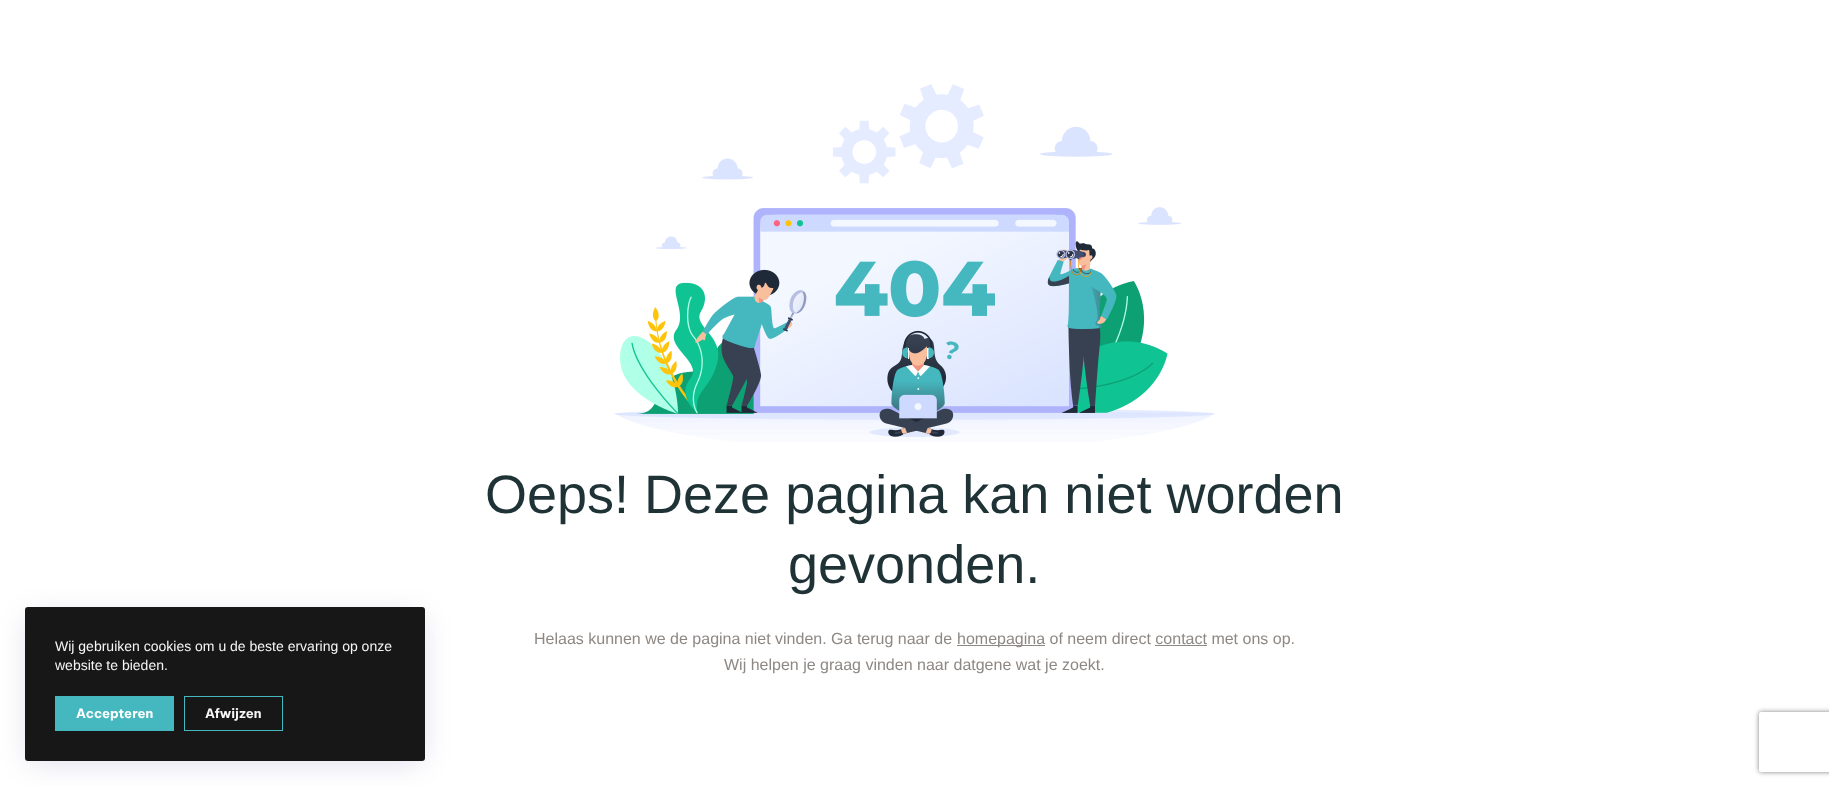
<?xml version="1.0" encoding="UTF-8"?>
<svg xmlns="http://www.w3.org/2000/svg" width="1829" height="786">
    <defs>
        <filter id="blur1" x="-50%" y="-200%" width="200%" height="500%"><feGaussianBlur stdDeviation="15"/></filter>
        <clipPath id="clip1"><path d="M 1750 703 H 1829 V 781 H 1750 Z M 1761 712 H 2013 C 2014 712 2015 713 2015 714 V 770 C 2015 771 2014 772 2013 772 H 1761 C 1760 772 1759 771 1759 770 V 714 C 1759 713 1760 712 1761 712 Z" clip-rule="evenodd"/></clipPath>
        <filter id="blur2" x="-50%" y="-200%" width="200%" height="500%"><feGaussianBlur stdDeviation="2.5"/></filter>
    </defs>
    <rect width="100%" height="100%" fill="#FFFFFF"/>
    <rect x="30" y="617" width="390" height="144" fill="#223865" fill-opacity="0.15" filter="url(#blur1)"/>
    <rect x="25" y="607" width="400" height="154" rx="3" fill="#171717"/>
    <text font-family="Liberation Sans" font-size="14" fill="#F5F5F5">
        <tspan x="55" y="651">Wij gebruiken cookies om u de beste ervaring op onze</tspan>
        <tspan x="55" y="670">website te bieden.</tspan>
    </text>
    <rect x="55" y="696" width="119" height="35" fill="#45B7BE"/>
    <text x="76" y="718" font-family="Be Vietnam Pro" font-size="13" font-weight="700" fill="#FFFFFF">Accepteren</text>
    <rect x="184.5" y="696.5" width="98" height="34" fill="none" stroke="#45B7BE"/>
    <text x="205" y="718" font-family="Be Vietnam Pro" font-size="13" font-weight="700" fill="#F5F5F5">Afwijzen</text>
    <image x="614" y="84" width="601" height="358" href="img_01.png"/>
    <text x="485" y="513" font-family="Liberation Sans" font-size="54" fill="#1F3337">Oeps! Deze pagina kan niet worden</text>
    <text x="788" y="583" font-family="Liberation Sans" font-size="54" fill="#1F3337">gevonden.</text>
    <text x="534" y="644" font-family="Liberation Sans" font-size="16" fill="#8E8884">Helaas kunnen we de pagina niet vinden. Ga terug naar de</text>
    <rect x="957" y="645" width="88" height="1" fill="#8E8884"/>
    <text x="957" y="644" font-family="Liberation Sans" font-size="16" fill="#8E8884">homepagina of neem direct contact met ons op.</text>
    <rect x="1155" y="645" width="52" height="1" fill="#8E8884"/>
    <text x="724" y="670" font-family="Liberation Sans" font-size="16" fill="#8E8884">Wij helpen je graag vinden naar datgene wat je zoekt.</text>
    <g clip-path="url(#clip1)">
        <rect x="1759" y="712" width="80" height="60" rx="2" fill="#808080" filter="url(#blur2)"/>
    </g>
</svg>
